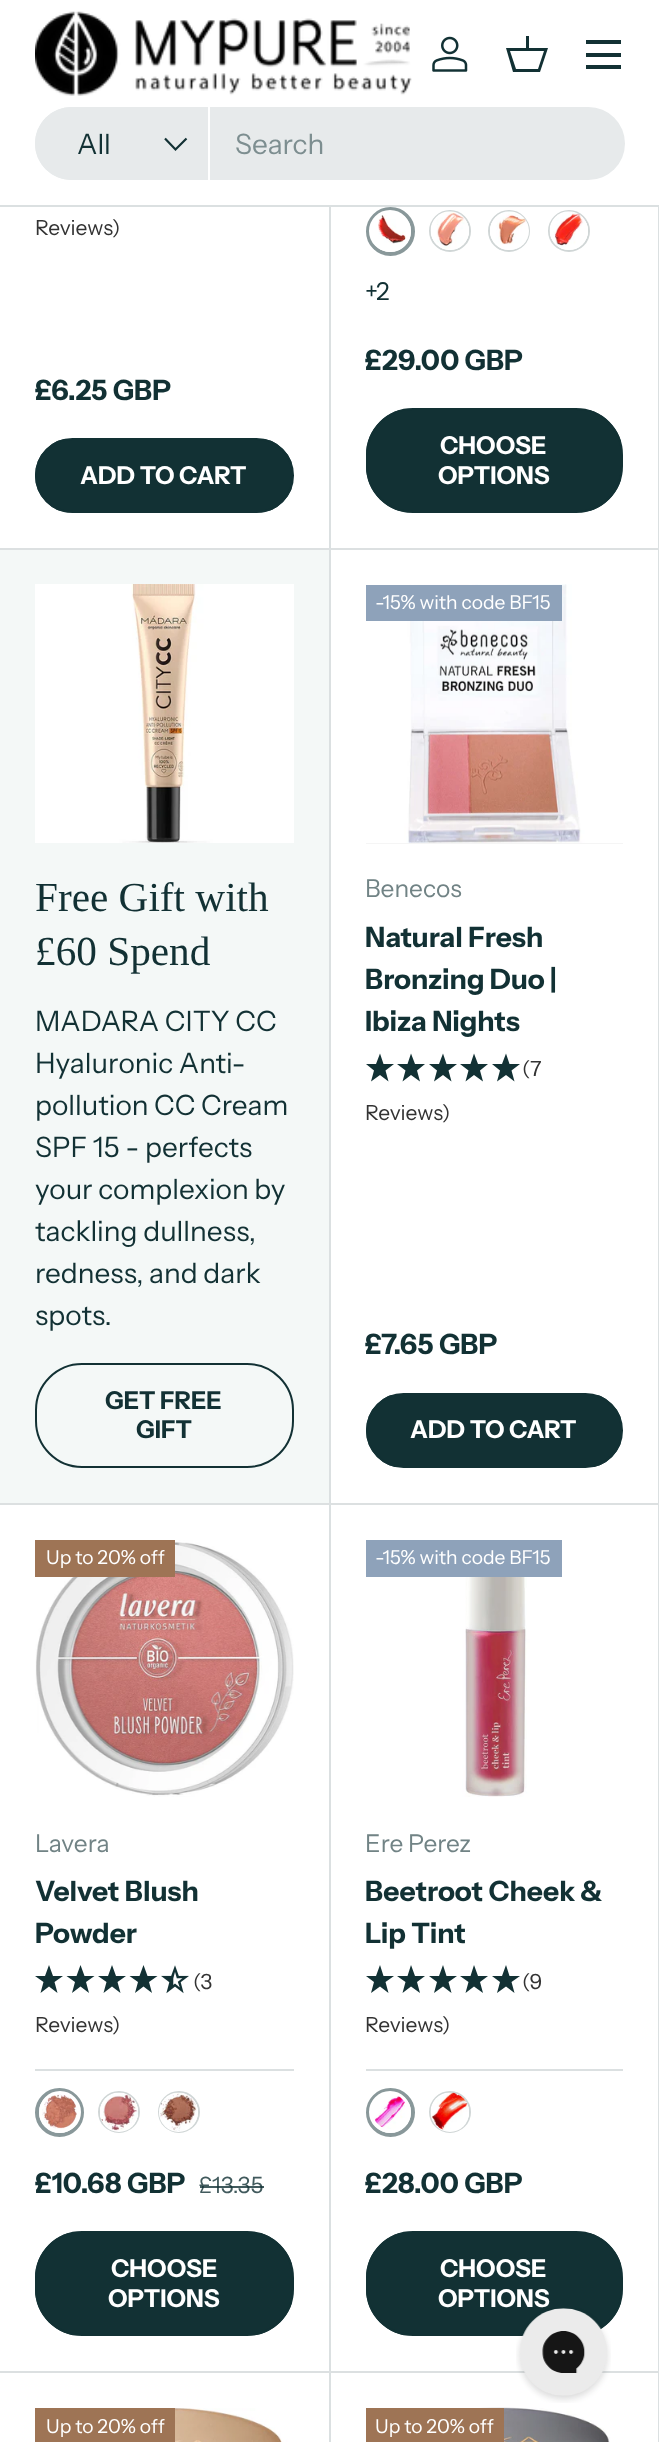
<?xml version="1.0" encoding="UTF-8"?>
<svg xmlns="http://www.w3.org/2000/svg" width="659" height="2442">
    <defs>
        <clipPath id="clip1"><rect x="35" y="438" width="259" height="75" rx="37.5"/></clipPath>
        <linearGradient id="g1" gradientUnits="userSpaceOnUse" x1="-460" y1="383" x2="278" y2="567"><stop offset="0.6" stop-color="#3C595B"/><stop offset="0.6" stop-color="#123134"/><stop offset="1" stop-color="#123134"/></linearGradient>
        <clipPath id="clip2"><rect x="366" y="408" width="257" height="105" rx="47"/></clipPath>
        <linearGradient id="g2" gradientUnits="userSpaceOnUse" x1="-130" y1="368" x2="611" y2="553"><stop offset="0.6" stop-color="#3C595B"/><stop offset="0.6" stop-color="#123134"/><stop offset="1" stop-color="#123134"/></linearGradient>
        <clipPath id="clip3"><rect x="366" y="1393" width="257" height="75" rx="37.5"/></clipPath>
        <linearGradient id="g3" gradientUnits="userSpaceOnUse" x1="-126" y1="1339" x2="607" y2="1522"><stop offset="0.6" stop-color="#3C595B"/><stop offset="0.6" stop-color="#123134"/><stop offset="1" stop-color="#123134"/></linearGradient>
        <clipPath id="clip4"><rect x="35" y="2231" width="259" height="105" rx="47"/></clipPath>
        <linearGradient id="g4" gradientUnits="userSpaceOnUse" x1="-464" y1="2191" x2="282" y2="2377"><stop offset="0.6" stop-color="#3C595B"/><stop offset="0.6" stop-color="#123134"/><stop offset="1" stop-color="#123134"/></linearGradient>
        <clipPath id="clip5"><rect x="366" y="2231" width="257" height="105" rx="47"/></clipPath>
        <linearGradient id="g5" gradientUnits="userSpaceOnUse" x1="-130" y1="2191" x2="611" y2="2376"><stop offset="0.6" stop-color="#3C595B"/><stop offset="0.6" stop-color="#123134"/><stop offset="1" stop-color="#123134"/></linearGradient>
    </defs>
    <rect width="100%" height="100%" fill="#FFFFFF"/>
    <path d="M 331 -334 V 550 L 329 548 V -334 Z" fill="#DBE0E1"/>
    <path d="M 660 -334 V 550 L 658 548 V -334 Z" fill="#DBE0E1"/>
    <rect x="329" y="0" width="330" height="205" fill="#FFFFFF"/>
    <rect x="0" y="205" width="659" height="2" fill="#DBE0E1"/>
    <image x="35" y="11" width="377" height="85" href="img_01.png"/>
    <image x="432" y="36" width="36" height="36" href="img_02.png"/>
    <path d="M 526 48 V 36 H 529 V 48 H 548 L 540 72 H 513 L 506 48 Z M 510 51 L 516 69 H 538 L 544 51 Z" fill="#123134"/>
    <rect x="586" y="40" width="35" height="4" fill="#123134"/>
    <rect x="586" y="65" width="35" height="4" fill="#123134"/>
    <rect x="586" y="53" width="35" height="4" fill="#123134"/>
    <rect x="35" y="107" width="590" height="73" rx="36.5" fill="#E7EAEB"/>
    <path d="M 71.5 107 H 210 V 180 H 71.5 C 51.5 180 35 163.5 35 143.5 C 35 123.5 51.5 107 71.5 107 Z" fill="#E7EAEB"/>
    <rect x="208" y="107" width="2" height="73" fill="#FFFFFF"/>
    <text x="77" y="154" font-family="Instrument Sans" font-size="28" fill="#123134">All</text>
    <path d="M 186.5 138.5 L 175.5 149.5 L 165 138.5" fill="none" stroke="#123134" stroke-width="2.2"/>
    <text x="235" y="154" font-family="Instrument Sans" font-size="28" fill="#7D8E90">Search</text>
    <path d="M 331 550 H 0 V 548 H 329 Z" fill="#123134" fill-opacity="0.15"/>
    <text x="35" y="235" font-family="Instrument Sans" font-size="21" fill="#333333">Reviews)</text>
    <text x="35" y="400" font-family="Instrument Sans" font-size="28" font-weight="700" fill="#123134">£6.25 GBP</text>
    <g clip-path="url(#clip1)">
        <rect x="35" y="439" width="257" height="72" fill="url(#g1)"/>
    </g>
    <rect x="36" y="439" width="257" height="73" rx="36.5" fill="none" stroke="#123134" stroke-width="2"/>
    <text x="80" y="484" font-family="Instrument Sans" font-size="24.5" font-weight="700" fill="#FFFFFF">ADD TO CART</text>
    <path d="M 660 550 H 331 V 548 H 658 Z" fill="#123134" fill-opacity="0.15"/>
    <circle cx="390.5" cy="231.5" r="22.5" fill="none" stroke="#89989A" stroke-width="4"/>
    <circle cx="390" cy="231" r="19" fill="none" stroke="#FFFFFF" stroke-width="4"/>
    <image x="378" y="215" width="28" height="29" href="img_03.png"/>
    <circle cx="450" cy="231" r="20" fill="none" stroke="#D0D6D6" stroke-width="2"/>
    <circle cx="450" cy="231" r="19" fill="#FFFFFF"/>
    <image x="430" y="211" width="39" height="38" href="img_04.png"/>
    <circle cx="509" cy="231" r="20" fill="none" stroke="#D0D6D6" stroke-width="2"/>
    <rect x="490" y="212" width="39" height="38" rx="19" fill="#FFFFFF"/>
    <image x="490" y="211" width="38" height="34" href="img_05.png"/>
    <circle cx="569" cy="231" r="20" fill="none" stroke="#D0D6D6" stroke-width="2"/>
    <circle cx="569" cy="231" r="19" fill="#FFFFFF"/>
    <image x="549" y="211" width="39" height="37" href="img_06.png"/>
    <text x="365" y="300" font-family="Instrument Sans" font-size="24.5" fill="#123134">+2</text>
    <text x="365" y="370" font-family="Instrument Sans" font-size="28" font-weight="700" fill="#123134">£29.00 GBP</text>
    <g clip-path="url(#clip2)">
        <rect x="366" y="410" width="255" height="101" fill="url(#g2)"/>
    </g>
    <rect x="367" y="409" width="255" height="103" rx="46" fill="none" stroke="#123134" stroke-width="2"/>
    <text x="440" y="454" font-family="Instrument Sans" font-size="24.5" font-weight="700" fill="#FFFFFF">CHOOSE</text>
    <text x="438" y="484" font-family="Instrument Sans" font-size="24.5" font-weight="700" fill="#FFFFFF">OPTIONS</text>
    <path d="M 331 550 V 1505 L 329 1503 V 550 Z" fill="#DBE0E1"/>
    <path d="M 331 1505 H 0 V 1503 H 329 Z" fill="#123134" fill-opacity="0.15"/>
    <rect x="0" y="550" width="329" height="953" fill="#F4F8F7"/>
    <image x="35" y="584" width="259" height="259" href="img_07.png"/>
    <text font-family="Liberation Serif" font-size="41.25" fill="#123134">
        <tspan x="35" y="911">Free Gift with</tspan>
        <tspan x="35" y="965">£60 Spend</tspan>
    </text>
    <text font-family="Instrument Sans" font-size="28" fill="#123134">
        <tspan x="35" y="1031">MADARA CITY CC</tspan>
        <tspan x="35" y="1073">Hyaluronic Anti-</tspan>
        <tspan x="35" y="1115">pollution CC Cream</tspan>
        <tspan x="35" y="1157">SPF 15 - perfects</tspan>
        <tspan x="35" y="1199">your complexion by</tspan>
        <tspan x="35" y="1241">tackling dullness,</tspan>
        <tspan x="35" y="1283">redness, and dark</tspan>
        <tspan x="35" y="1325">spots.</tspan>
    </text>
    <rect x="36" y="1364" width="257" height="103" rx="46" fill="none" stroke="#123134" stroke-width="2"/>
    <text x="105" y="1409" font-family="Instrument Sans" font-size="24.5" font-weight="700" fill="#123134">GET FREE</text>
    <text x="136" y="1438" font-family="Instrument Sans" font-size="24.5" font-weight="700" fill="#123134">GIFT</text>
    <path d="M 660 550 V 1505 L 658 1503 V 550 Z" fill="#DBE0E1"/>
    <path d="M 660 1505 H 331 V 1503 H 658 Z" fill="#123134" fill-opacity="0.15"/>
    <rect x="366" y="843" width="257" height="1" fill="#F5F5F5"/>
    <image x="366" y="584" width="257" height="259" href="img_08.png"/>
    <rect x="366" y="585" width="196" height="36" fill="#8EA2BA"/>
    <text x="375" y="609" font-family="Instrument Sans" font-size="19.25" fill="#FFFFFF">-15% with code BF15</text>
    <text x="365" y="897" font-family="Instrument Sans" font-size="24.5" fill="#718385">Benecos</text>
    <text font-family="Instrument Sans" font-size="28" font-weight="700" fill="#123134">
        <tspan x="365" y="947">Natural Fresh</tspan>
        <tspan x="365" y="989">Bronzing Duo |</tspan>
        <tspan x="365" y="1031">Ibiza Nights</tspan>
    </text>
    <path d="M 394 1064 L 385.5 1070.5 L 388.5 1081.5 L 380 1075 L 371 1081.5 L 374 1070.5 L 366 1064 H 376 L 380 1053.5 L 383.5 1064 Z M 425 1064 L 417 1070.5 L 420 1081.5 L 411 1075 L 402.5 1081.5 L 405.5 1070.5 L 397 1064 H 407.5 L 411 1053.5 L 415 1064 Z" fill="#123134"/>
    <path d="M 457 1064 L 448.5 1070.5 L 451.5 1081.5 L 443 1075 L 434 1081.5 L 437 1070.5 L 429 1064 H 439 L 443 1053.5 L 446.5 1064 Z M 488 1064 L 480 1070.5 L 483 1081.5 L 474 1075 L 465.5 1081.5 L 468.5 1070.5 L 460 1064 H 470.5 L 474 1053.5 L 478 1064 Z" fill="#123134"/>
    <path d="M 520 1064 L 511.5 1070.5 L 514.5 1081.5 L 506 1075 L 497 1081.5 L 500 1070.5 L 492 1064 H 502 L 506 1053.5 L 509.5 1064 Z" fill="#123134"/>
    <text x="522" y="1076" font-family="Instrument Sans" font-size="21" fill="#333333">(7</text>
    <text x="365" y="1120" font-family="Instrument Sans" font-size="21" fill="#333333">Reviews)</text>
    <text x="365" y="1354" font-family="Instrument Sans" font-size="28" font-weight="700" fill="#123134">£7.65 GBP</text>
    <g clip-path="url(#clip3)">
        <rect x="366" y="1395" width="255" height="72" fill="url(#g3)"/>
    </g>
    <rect x="367" y="1394" width="255" height="73" rx="36.5" fill="none" stroke="#123134" stroke-width="2"/>
    <text x="410" y="1438" font-family="Instrument Sans" font-size="24.5" font-weight="700" fill="#FFFFFF">ADD TO CART</text>
    <path d="M 331 1505 V 2373 L 329 2371 V 1505 Z" fill="#DBE0E1"/>
    <path d="M 331 2373 H 0 V 2371 H 329 Z" fill="#123134" fill-opacity="0.15"/>
    <image x="35" y="1540" width="259" height="257" href="img_09.png"/>
    <rect x="35" y="1540" width="140" height="37" fill="#9E7455"/>
    <text x="46" y="1564" font-family="Instrument Sans" font-size="19.25" fill="#FFFFFF">Up to 20% off</text>
    <text x="35" y="1852" font-family="Instrument Sans" font-size="24.5" fill="#718385">Lavera</text>
    <text font-family="Instrument Sans" font-size="28" font-weight="700" fill="#123134">
        <tspan x="35" y="1901">Velvet Blush</tspan>
        <tspan x="35" y="1943">Powder</tspan>
    </text>
    <path d="M 63 1976 L 54.5 1982 L 57.5 1993 L 49 1986.5 L 40.5 1993 L 43.5 1982 L 35 1976 H 45 L 49 1965 L 53 1976 Z M 94.5 1976 L 86 1982 L 89 1993 L 80.5 1986.5 L 72 1993 L 75 1982 L 66.5 1976 H 76.5 L 80.5 1965 L 84.5 1976 Z" fill="#123134"/>
    <path d="M 126 1976 L 117.5 1982 L 120.5 1993 L 112 1986.5 L 103.5 1993 L 106.5 1982 L 98 1976 H 108 L 112 1965 L 116 1976 Z M 157.5 1976 L 149 1982 L 152 1993 L 143.5 1986.5 L 135 1993 L 138 1982 L 129.5 1976 H 139.5 L 143.5 1965 L 147.5 1976 Z" fill="#123134"/>
    <image x="161" y="1965" width="28" height="29" href="img_10.png"/>
    <text x="193" y="1989" font-family="Instrument Sans" font-size="21" fill="#333333">(3</text>
    <text x="35" y="2032" font-family="Instrument Sans" font-size="21" fill="#333333">Reviews)</text>
    <rect x="35" y="2069" width="259" height="2" fill="#DBE0E1"/>
    <circle cx="59.5" cy="2112.5" r="22.5" fill="none" stroke="#89989A" stroke-width="4"/>
    <circle cx="60" cy="2112" r="19" fill="none" stroke="#FFFFFF" stroke-width="4"/>
    <image x="42" y="2094" width="35" height="35" href="img_11.png"/>
    <circle cx="119" cy="2112" r="20" fill="none" stroke="#D0D6D6" stroke-width="2"/>
    <rect x="100" y="2093" width="38" height="39" rx="19" fill="#FFFFFF"/>
    <image x="100" y="2092" width="38" height="39" href="img_12.png"/>
    <circle cx="179" cy="2112" r="20" fill="none" stroke="#D0D6D6" stroke-width="2"/>
    <circle cx="178.5" cy="2112.5" r="19.5" fill="#FFFFFF"/>
    <image x="159" y="2092" width="38" height="39" href="img_13.png"/>
    <text x="35" y="2193" font-family="Instrument Sans" font-size="28" font-weight="700" fill="#123134">£10.68 GBP</text>
    <text x="199" y="2193" font-family="Instrument Sans" font-size="22.5" fill="#415A5D">£13.35</text>
    <rect x="200" y="2186" width="64" height="2" fill="#123134" fill-opacity="0.8"/>
    <g clip-path="url(#clip4)">
        <rect x="35" y="2233" width="257" height="102" fill="url(#g4)"/>
    </g>
    <rect x="36" y="2232" width="257" height="103" rx="46" fill="none" stroke="#123134" stroke-width="2"/>
    <text x="111" y="2277" font-family="Instrument Sans" font-size="24.5" font-weight="700" fill="#FFFFFF">CHOOSE</text>
    <text x="108" y="2307" font-family="Instrument Sans" font-size="24.5" font-weight="700" fill="#FFFFFF">OPTIONS</text>
    <path d="M 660 1505 V 2373 L 658 2371 V 1505 Z" fill="#DBE0E1"/>
    <path d="M 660 2373 H 331 V 2371 H 658 Z" fill="#123134" fill-opacity="0.15"/>
    <image x="366" y="1540" width="257" height="257" href="img_14.png"/>
    <rect x="366" y="1540" width="196" height="37" fill="#8EA2BA"/>
    <text x="375" y="1564" font-family="Instrument Sans" font-size="19.25" fill="#FFFFFF">-15% with code BF15</text>
    <text x="365" y="1852" font-family="Instrument Sans" font-size="24.5" fill="#718385">Ere Perez</text>
    <text font-family="Instrument Sans" font-size="28" font-weight="700" fill="#123134">
        <tspan x="365" y="1901">Beetroot Cheek &amp;</tspan>
        <tspan x="365" y="1943">Lip Tint</tspan>
    </text>
    <path d="M 394 1976 L 385.5 1982 L 388.5 1993 L 380 1986.5 L 371 1993 L 374 1982 L 366 1976 H 376 L 380 1965 L 383.5 1976 Z M 425 1976 L 417 1982 L 420 1993 L 411 1986.5 L 402.5 1993 L 405.5 1982 L 397 1976 H 407.5 L 411 1965 L 415 1976 Z" fill="#123134"/>
    <path d="M 457 1976 L 448.5 1982 L 451.5 1993 L 443 1986.5 L 434 1993 L 437 1982 L 429 1976 H 439 L 443 1965 L 446.5 1976 Z M 488 1976 L 480 1982 L 483 1993 L 474 1986.5 L 465.5 1993 L 468.5 1982 L 460 1976 H 470.5 L 474 1965 L 478 1976 Z" fill="#123134"/>
    <path d="M 520 1976 L 511.5 1982 L 514.5 1993 L 506 1986.5 L 497 1993 L 500 1982 L 492 1976 H 502 L 506 1965 L 509.5 1976 Z" fill="#123134"/>
    <text x="522" y="1989" font-family="Instrument Sans" font-size="21" fill="#333333">(9</text>
    <text x="365" y="2032" font-family="Instrument Sans" font-size="21" fill="#333333">Reviews)</text>
    <rect x="366" y="2069" width="257" height="2" fill="#DBE0E1"/>
    <circle cx="390.5" cy="2112.5" r="22.5" fill="none" stroke="#89989A" stroke-width="4"/>
    <circle cx="390" cy="2112" r="19" fill="none" stroke="#FFFFFF" stroke-width="4"/>
    <image x="374" y="2096" width="31" height="33" href="img_15.png"/>
    <circle cx="450" cy="2112" r="20" fill="none" stroke="#D0D6D6" stroke-width="2"/>
    <rect x="431" y="2093" width="38" height="39" rx="19" fill="#FFFFFF"/>
    <image x="430" y="2092" width="39" height="38" href="img_16.png"/>
    <text x="365" y="2193" font-family="Instrument Sans" font-size="28" font-weight="700" fill="#123134">£28.00 GBP</text>
    <g clip-path="url(#clip5)">
        <rect x="366" y="2233" width="255" height="102" fill="url(#g5)"/>
    </g>
    <rect x="367" y="2232" width="255" height="103" rx="46" fill="none" stroke="#123134" stroke-width="2"/>
    <text x="440" y="2277" font-family="Instrument Sans" font-size="24.5" font-weight="700" fill="#FFFFFF">CHOOSE</text>
    <text x="438" y="2307" font-family="Instrument Sans" font-size="24.5" font-weight="700" fill="#FFFFFF">OPTIONS</text>
    <path d="M 331 2373 V 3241 L 329 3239 V 2373 Z" fill="#DBE0E1"/>
    <rect x="35" y="2408" width="140" height="34" fill="#9E7455"/>
    <text x="46" y="2433" font-family="Instrument Sans" font-size="19.25" fill="#FFFFFF">Up to 20% off</text>
    <image x="175" y="2408" width="119" height="34" href="img_17.png"/>
    <path d="M 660 2373 V 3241 L 658 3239 V 2373 Z" fill="#DBE0E1"/>
    <image x="366" y="2407" width="257" height="35" href="img_18.png"/>
    <rect x="366" y="2408" width="138" height="34" fill="#9E7455"/>
    <text x="375" y="2433" font-family="Instrument Sans" font-size="19.25" fill="#FFFFFF">Up to 20% off</text>
    <image x="516" y="2308" width="95" height="95" href="img_19.png"/>
</svg>
